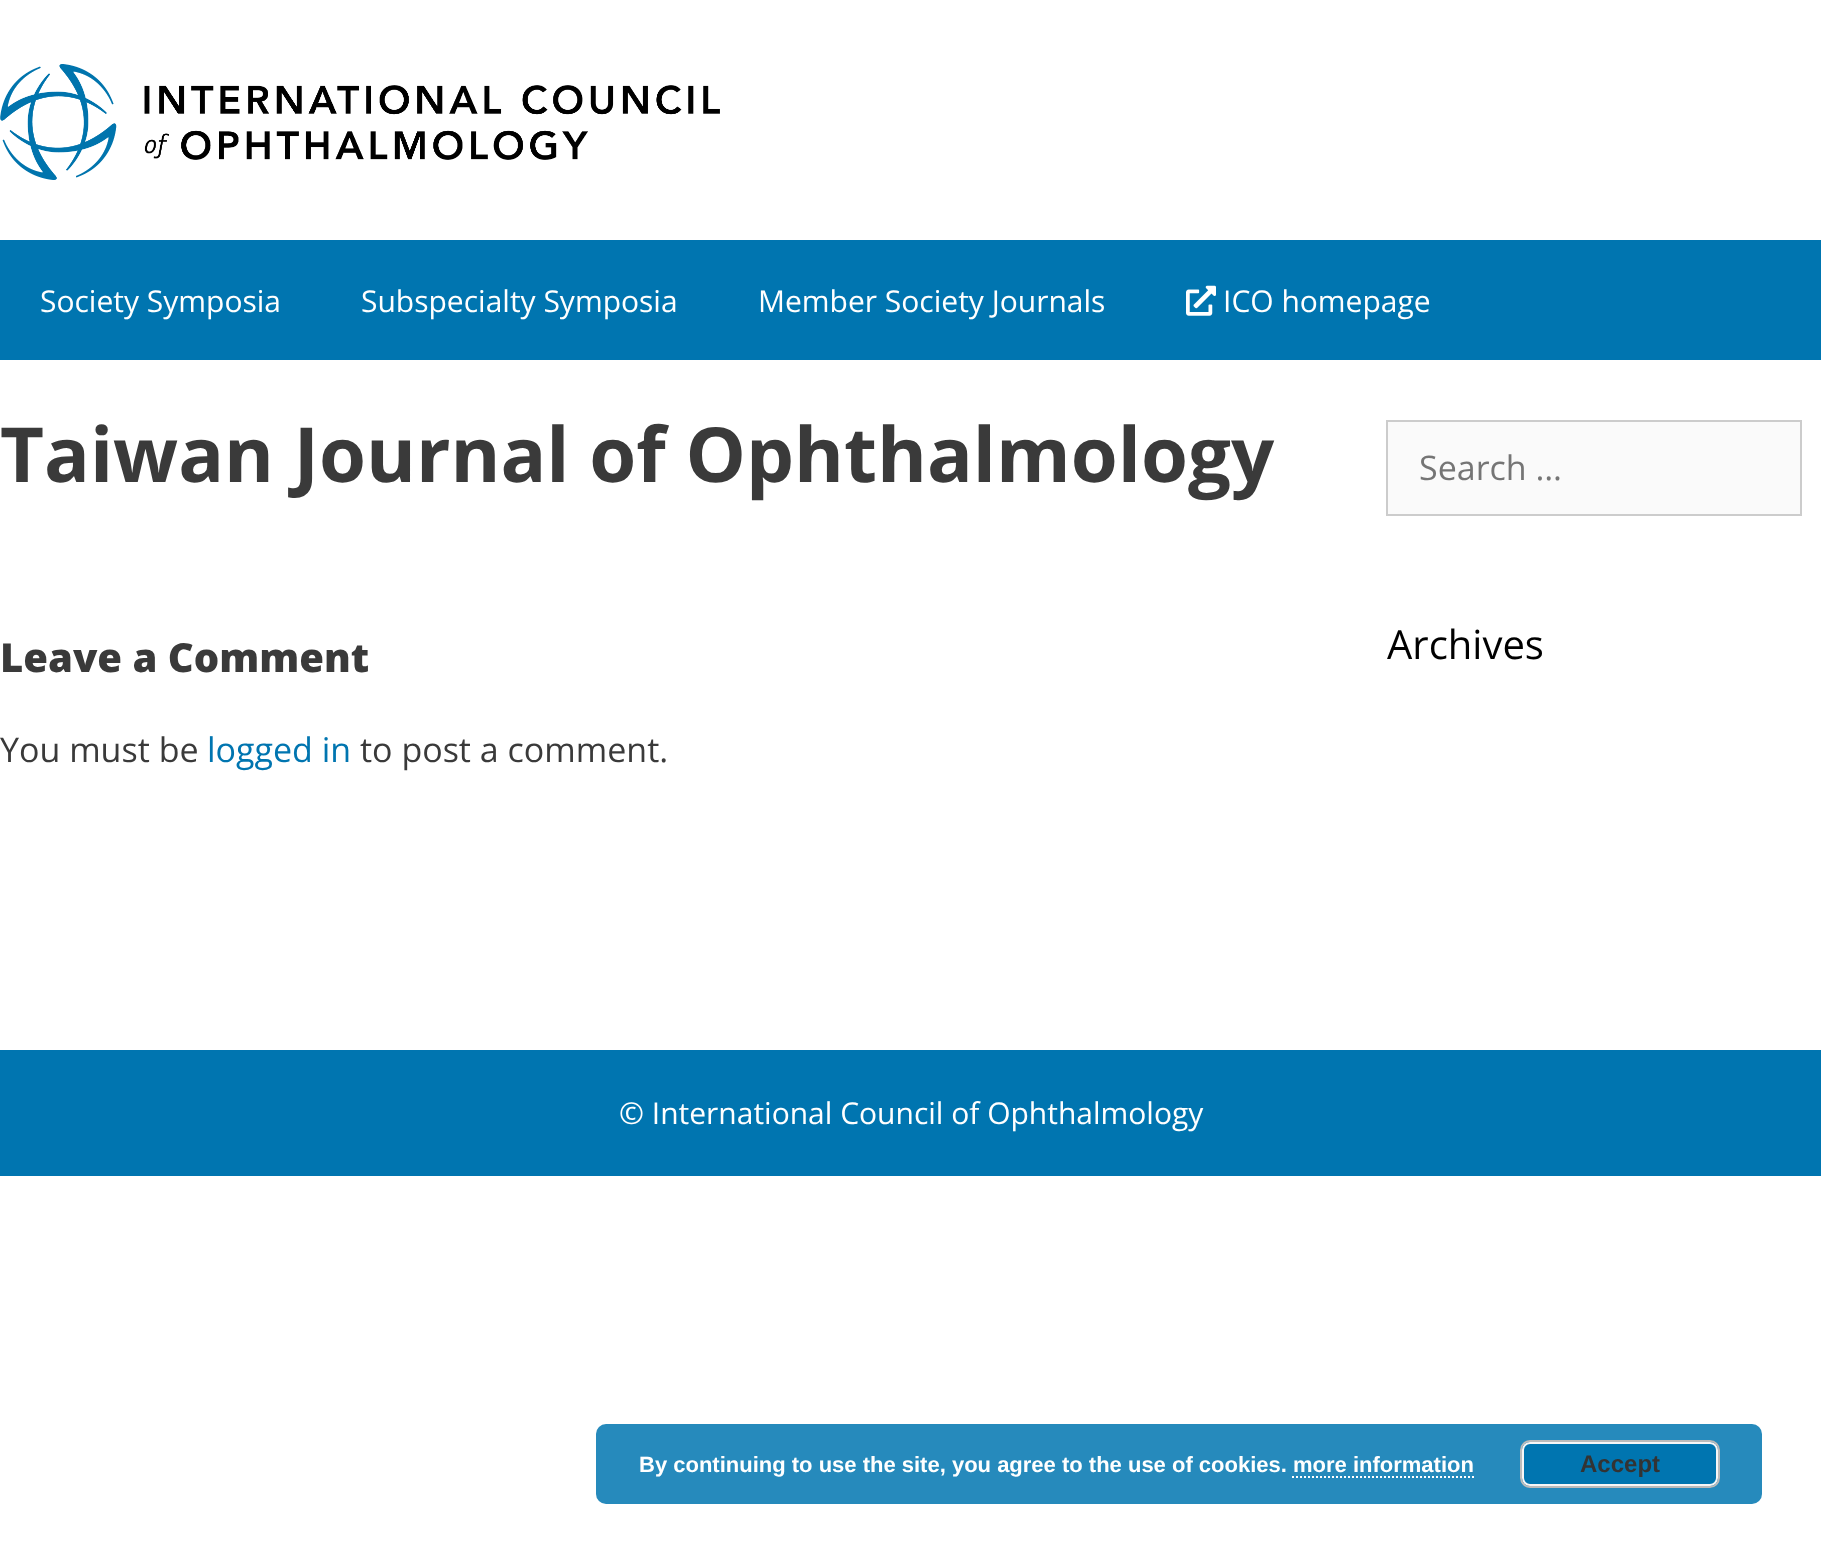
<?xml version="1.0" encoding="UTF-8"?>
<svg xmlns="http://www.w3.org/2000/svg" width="1821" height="1564">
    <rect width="100%" height="100%" fill="#FFFFFF"/>
    <image x="0" y="64" width="720" height="116" href="img_01.png"/>
    <rect x="0" y="240" width="1821" height="120" fill="#0075B0"/>
    <text x="40" y="312" font-family="Open Sans" font-size="30" fill="#FFFFFF">Society Symposia</text>
    <text x="361" y="312" font-family="Open Sans" font-size="30" fill="#FFFFFF">Subspecialty Symposia</text>
    <text x="758" y="312" font-family="Open Sans" font-size="30" fill="#FFFFFF">Member Society Journals</text>
    <image x="1186" y="285" width="30" height="31" href="img_02.png"/>
    <text x="1223" y="312" font-family="Open Sans" font-size="30" fill="#FFFFFF">ICO homepage</text>
    <text x="0" y="482" font-family="Open Sans" font-size="76" font-weight="700" fill="#3A3A3A">Taiwan Journal of Ophthalmology</text>
    <text x="0" y="672" font-family="Open Sans" font-size="40" font-weight="800" fill="#3A3A3A">Leave a Comment</text>
    <text x="0" y="762" font-family="Open Sans" font-size="34" fill="#3A3A3A">You must be</text>
    <text x="207" y="762" font-family="Open Sans" font-size="34" fill="#0075B0">logged in</text>
    <text x="360" y="762" font-family="Open Sans" font-size="34" fill="#3A3A3A">to post a comment.</text>
    <rect x="1387" y="421" width="414" height="94" fill="#FAFAFA" stroke="#CCCCCC" stroke-width="2"/>
    <text x="1419" y="480" font-family="Open Sans" font-size="34" fill="#757575">Search …</text>
    <text x="1387" y="659" font-family="Open Sans" font-size="40" fill="#000000">Archives</text>
    <rect x="0" y="1050" width="1821" height="126" fill="#0075B0"/>
    <text x="619" y="1124" font-family="Open Sans" font-size="30" fill="#FFFFFF">© International Council of Ophthalmology</text>
    <rect x="596" y="1424" width="1166" height="80" rx="10" fill="#268ABC"/>
    <text x="639" y="1472" font-family="Liberation Sans" font-size="22" font-weight="700" fill="#FFFFFF">By continuing to use the site, you agree to the use of cookies. more information</text>
    <rect x="1520" y="1440" width="200" height="48" rx="10" fill="#0075B0"/>
    <rect x="1523" y="1443" width="194" height="42" rx="7" fill="none" stroke="#F6F6F6" stroke-width="2"/>
    <rect x="1521" y="1441" width="198" height="46" rx="9" fill="none" stroke="#BBBBBB" stroke-width="2"/>
    <text x="1580" y="1472" font-family="Liberation Sans" font-size="24" font-weight="700" fill="#333333">Accept</text>
    <path d="M 1292 1477 H 1474" fill="none" stroke="#FFFFFF" stroke-width="2" stroke-dasharray="2 2"/>
</svg>
